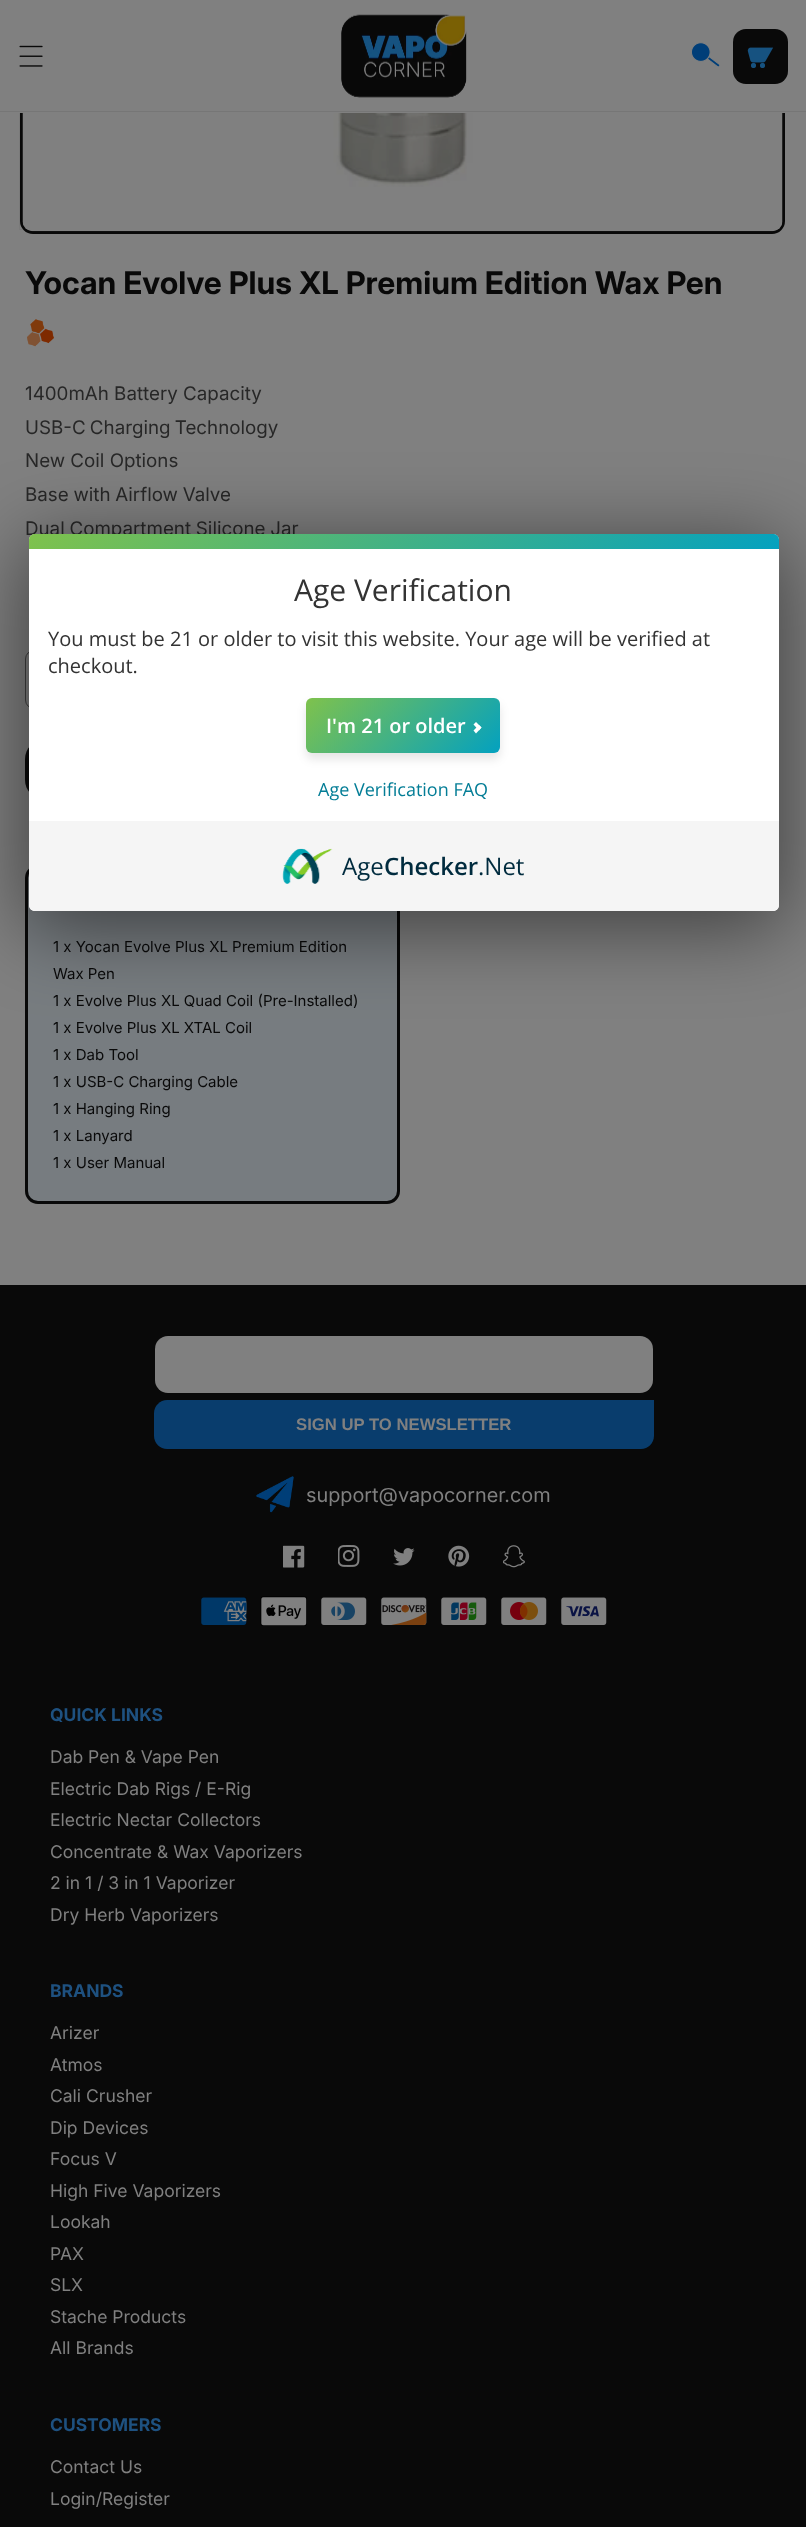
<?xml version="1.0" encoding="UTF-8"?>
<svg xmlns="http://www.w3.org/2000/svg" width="806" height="2527">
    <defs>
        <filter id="blur1" x="-50%" y="-200%" width="200%" height="500%"><feGaussianBlur stdDeviation="40"/></filter>
        <linearGradient id="g1" gradientUnits="userSpaceOnUse" x1="212" y1="350" x2="595" y2="733"><stop offset="0" stop-color="#7FC24C"/><stop offset="1" stop-color="#04A1BF"/></linearGradient>
        <filter id="blur2" x="-50%" y="-200%" width="200%" height="500%"><feGaussianBlur stdDeviation="5"/></filter>
        <linearGradient id="g2" gradientUnits="userSpaceOnUse" x1="341" y1="663" x2="465" y2="787"><stop offset="0" stop-color="#7FC24C"/><stop offset="1" stop-color="#04A1BF"/></linearGradient>
    </defs>
    <rect width="100%" height="100%" fill="#808080"/>
    <rect x="19.5" y="-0.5" width="761" height="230" fill="none" stroke="#7A7A7A"/>
    <rect x="21.5" y="-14.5" width="762" height="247" rx="11.5" fill="none" stroke="#090909" stroke-width="3"/>
    <rect x="19" y="0" width="766" height="113" fill="#808080"/>
    <rect x="0" y="111" width="806" height="1" fill="#767676"/>
    <image x="19" y="45" width="24" height="22" href="img_01.png"/>
    <image x="341" y="14" width="126" height="84" href="img_02.png"/>
    <image x="691" y="42" width="29" height="25" href="img_03.png"/>
    <rect x="733" y="29" width="55" height="55" rx="13" fill="#090909"/>
    <image x="747" y="47" width="27" height="21" href="img_04.png"/>
    <image x="22" y="113" width="761" height="119" href="img_05.png"/>
    <text x="25" y="294" font-family="Inter" font-size="31.25" font-weight="700" fill="#090909">Yocan Evolve Plus XL Premium Edition Wax Pen</text>
    <image x="27" y="319" width="27" height="28" href="img_06.png"/>
    <text font-family="Inter" font-size="18.75" fill="#272727">
        <tspan x="25" y="400">1400mAh Battery Capacity</tspan>
        <tspan x="25" y="434" word-spacing="-1">USB-C Charging Technology</tspan>
        <tspan x="25" y="467">New Coil Options</tspan>
        <tspan x="25" y="501" word-spacing="-0.5">Base with Airflow Valve</tspan>
        <tspan x="25" y="535" word-spacing="-0.5">Dual Compartment Silicone Jar</tspan>
    </text>
    <rect x="25.5" y="650.5" width="177" height="58" rx="8.5" fill="none" stroke="#3F3F3F"/>
    <path d="M 44 740 H 575 V 780 C 575 790.5 566.5 799 556 799 H 44 C 33.5 799 25 790.5 25 780 V 759 C 25 748.5 33.5 740 44 740 Z" fill="#090909"/>
    <rect x="26.5" y="866.5" width="372" height="336" rx="11.5" fill="#777C80" stroke="#090909" stroke-width="3"/>
    <text font-family="Inter" font-size="15" fill="#090909">
        <tspan x="53" y="952">1 x Yocan Evolve Plus XL Premium Edition</tspan>
        <tspan x="53" y="979">Wax Pen</tspan>
        <tspan x="53" y="1006">1 x Evolve Plus XL Quad Coil (Pre-Installed)</tspan>
        <tspan x="53" y="1033">1 x Evolve Plus XL XTAL Coil</tspan>
        <tspan x="53" y="1060">1 x Dab Tool</tspan>
        <tspan x="53" y="1087">1 x USB-C Charging Cable</tspan>
        <tspan x="53" y="1114">1 x Hanging Ring</tspan>
        <tspan x="53" y="1141">1 x Lanyard</tspan>
        <tspan x="53" y="1168">1 x User Manual</tspan>
    </text>
    <rect x="25" y="543" width="758" height="385" rx="10" fill="#000000" fill-opacity="0.5" filter="url(#blur1)"/>
    <rect x="29" y="534" width="750" height="377" rx="6" fill="#FFFFFF"/>
    <path d="M 35 534 H 773 C 776.5 534 779 536.5 779 540 V 549 H 29 V 540 C 29 536.5 31.5 534 35 534 Z" fill="url(#g1)"/>
    <text x="294" y="601" font-family="Open Sans" font-size="30" fill="#333333">Age Verification</text>
    <text font-family="Open Sans" font-size="20" fill="#333333">
        <tspan x="48" y="646">You must be 21 or older to visit this website. Your age will be verified at</tspan>
        <tspan x="48" y="673">checkout.</tspan>
    </text>
    <rect x="306" y="704" width="194" height="55" rx="6" fill="#000000" fill-opacity="0.1" filter="url(#blur2)"/>
    <rect x="306" y="698" width="194" height="55" rx="6" fill="url(#g2)"/>
    <text x="326" y="733" font-family="Open Sans" font-size="20" font-weight="600" fill="#FFFFFF">I'm 21 or older</text>
    <path d="M 473.5 724.5 L 476 722 L 481.5 727.5 L 479 730.5 Z" fill="#FFFFFF"/>
    <path d="M 473.5 730.5 L 479 725 L 481.5 727.5 L 476 733.5 Z" fill="#FFFFFF"/>
    <text x="318" y="796" font-family="Open Sans" font-size="18" fill="#037D96">Age Verification FAQ</text>
    <path d="M 29 821 H 779 V 905 C 779 908.5 776.5 911 773 911 H 35 C 31.5 911 29 908.5 29 905 Z" fill="#F5F5F5"/>
    <image x="282" y="848" width="51" height="36" href="img_07.png"/>
    <text x="342" y="875" font-family="Open Sans" font-size="24" fill="#002B3E">Age</text>
    <text x="384" y="875" font-family="Open Sans" font-size="24" font-weight="600" fill="#002B3E">Checker</text>
    <text x="478" y="875" font-family="Open Sans" font-size="24" fill="#002B3E">.Net</text>
    <rect x="0" y="1285" width="806" height="1242" fill="#090909"/>
    <rect x="155" y="1336" width="498" height="57" rx="13" fill="#808080"/>
    <path d="M 167 1400 H 654 V 1436 C 654 1443 648 1449 641 1449 H 167 C 160 1449 154 1443 154 1436 V 1413 C 154 1406 160 1400 167 1400 Z" fill="#093D6D"/>
    <text x="296" y="1430" font-family="Liberation Sans" font-size="16.7" font-weight="700" fill="#808080">SIGN UP TO NEWSLETTER</text>
    <image x="256" y="1476" width="38" height="37" href="img_08.png"/>
    <text x="306" y="1502" font-family="'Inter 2'" font-size="20" fill="#808080">support@vapocorner.com</text>
    <image x="283" y="1545" width="22" height="23" href="img_09.png"/>
    <image x="338" y="1545" width="22" height="22" href="img_10.png"/>
    <image x="393" y="1548" width="22" height="18" href="img_11.png"/>
    <image x="448" y="1545" width="22" height="22" href="img_12.png"/>
    <image x="503" y="1545" width="22" height="23" href="img_13.png"/>
    <image x="201" y="1597" width="46" height="28" href="img_14.png"/>
    <image x="260" y="1596" width="47" height="30" href="img_15.png"/>
    <image x="321" y="1597" width="46" height="28" href="img_16.png"/>
    <image x="381" y="1597" width="46" height="28" href="img_17.png"/>
    <image x="441" y="1597" width="46" height="28" href="img_18.png"/>
    <image x="501" y="1597" width="46" height="28" href="img_19.png"/>
    <image x="561" y="1597" width="46" height="28" href="img_20.png"/>
    <text x="50" y="1721" font-family="'Inter 2'" font-size="17.5" font-weight="700" fill="#1E5180">QUICK LINKS</text>
    <text font-family="Inter" font-size="17.5" fill="#808080">
        <tspan x="50" y="1763">Dab Pen &amp; Vape Pen</tspan>
        <tspan x="50" y="1795">Electric Dab Rigs / E-Rig</tspan>
        <tspan x="50" y="1826">Electric Nectar Collectors</tspan>
        <tspan x="50" y="1858">Concentrate &amp; Wax Vaporizers</tspan>
        <tspan x="50" y="1889">2 in 1 / 3 in 1 Vaporizer</tspan>
        <tspan x="50" y="1921">Dry Herb Vaporizers</tspan>
    </text>
    <text x="50" y="1997" font-family="'Inter 2'" font-size="17.5" font-weight="700" fill="#1E5180">BRANDS</text>
    <text font-family="Inter" font-size="17.5" fill="#808080">
        <tspan x="50" y="2039">Arizer</tspan>
        <tspan x="50" y="2071">Atmos</tspan>
        <tspan x="50" y="2102">Cali Crusher</tspan>
        <tspan x="50" y="2134">Dip Devices</tspan>
        <tspan x="50" y="2165">Focus V</tspan>
        <tspan x="50" y="2197">High Five Vaporizers</tspan>
        <tspan x="50" y="2228">Lookah</tspan>
        <tspan x="50" y="2260">PAX</tspan>
        <tspan x="50" y="2291">SLX</tspan>
        <tspan x="50" y="2323">Stache Products</tspan>
        <tspan x="50" y="2354">All Brands</tspan>
    </text>
    <text x="50" y="2431" font-family="'Inter 2'" font-size="17.5" font-weight="700" fill="#1E5180">CUSTOMERS</text>
    <text font-family="Inter" font-size="17.5" fill="#808080">
        <tspan x="50" y="2473">Contact Us</tspan>
        <tspan x="50" y="2505">Login/Register</tspan>
    </text>
</svg>
